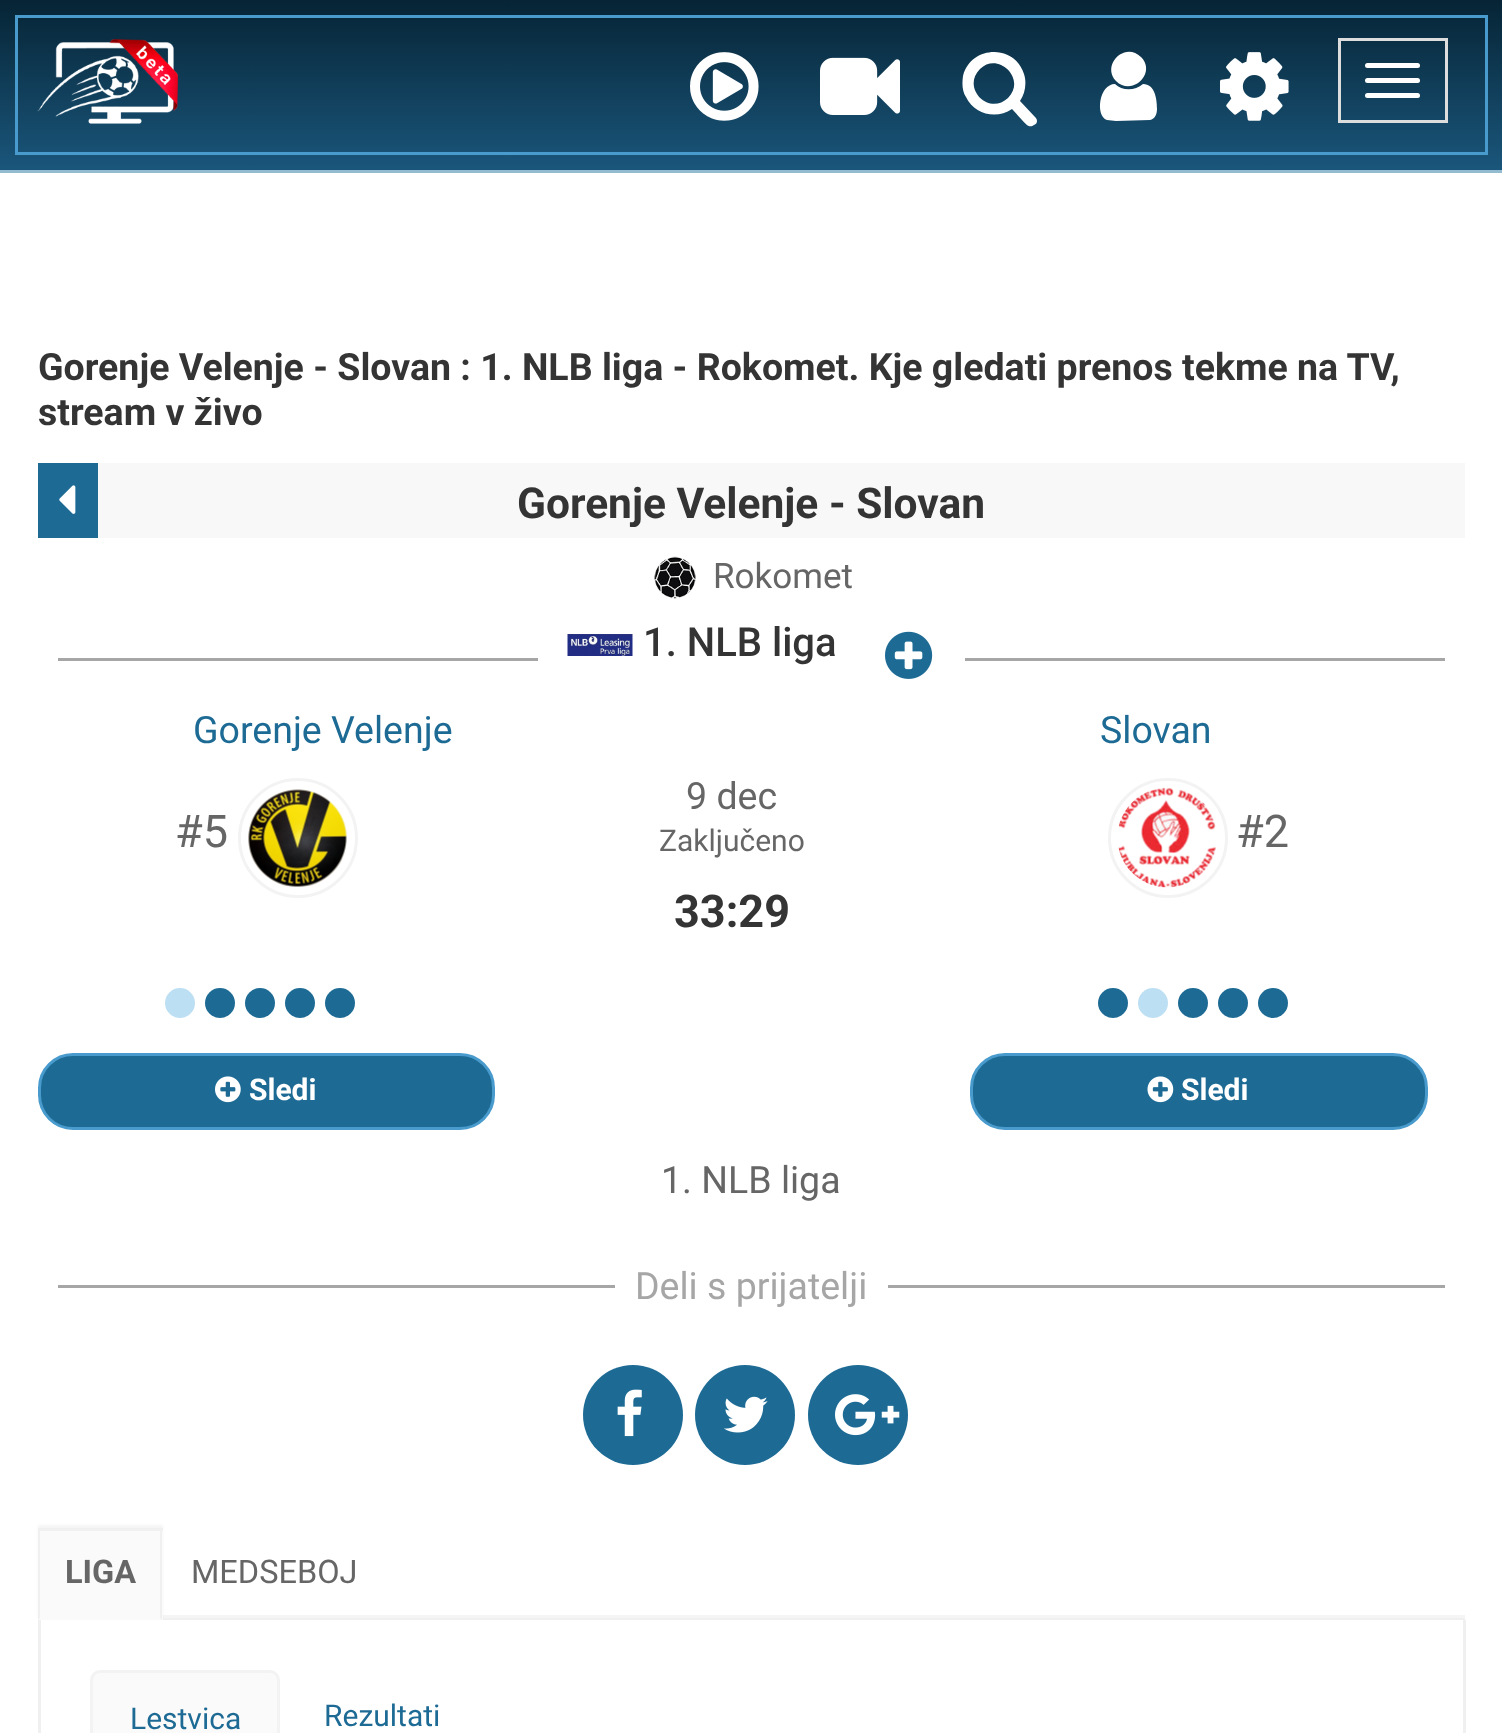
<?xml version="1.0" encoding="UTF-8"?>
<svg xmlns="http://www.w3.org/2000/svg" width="1502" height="1733">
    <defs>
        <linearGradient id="g1" gradientUnits="userSpaceOnUse" x1="751" y1="0" x2="751" y2="170"><stop offset="0" stop-color="#062435"/><stop offset="1" stop-color="#1A567B"/></linearGradient>
        <filter id="blur1" x="-50%" y="-200%" width="200%" height="500%"><feGaussianBlur stdDeviation="1"/></filter>
    </defs>
    <rect width="100%" height="100%" fill="#FFFFFF"/>
    <rect x="0" y="170" width="1502" height="3" fill="#94BCD1"/>
    <rect x="0" y="0" width="1502" height="170" fill="url(#g1)"/>
    <rect x="16.5" y="16.5" width="1470" height="137" fill="none" stroke="#489BCC" stroke-width="3"/>
    <image x="37" y="39" width="142" height="85" href="img_01.png"/>
    <image x="690" y="52" width="69" height="69" href="img_02.png"/>
    <image x="820" y="57" width="80" height="58" href="img_03.png"/>
    <path d="M 1008 98 C 1027 79 998 51 980 69 C 961 88 989 116 1008 98 Z M 1037 121 C 1037 123 1036 124 1034 125 C 1029 129 1025 123 1022 120 L 1012 109 C 996 120 974 114 966 97 C 962 91 962 83 963 76 C 971 45 1015 44 1024 74 C 1027 83 1025 94 1020 101 L 1035 117 C 1036 118 1037 119 1037 121 Z" fill="#FFFFFF"/>
    <path d="M 1157 109 C 1157 114 1155 119 1150 120 L 1116 121 L 1107 120 C 1095 116 1099 84 1115 84 C 1122 91 1135 91 1143 84 C 1155 84 1157 99 1157 109 Z M 1141 57 C 1157 73 1132 97 1116 81 C 1101 65 1125 41 1141 57 Z" fill="#FFFFFF"/>
    <image x="1220" y="52" width="69" height="69" href="img_04.png"/>
    <rect x="1339.5" y="39.5" width="107" height="82" fill="none" stroke="#DDDDDD" stroke-width="3"/>
    <rect x="1365" y="63" width="55" height="5" rx="2.5" fill="#FFFFFF"/>
    <rect x="1365" y="78" width="55" height="5" rx="2.5" fill="#FFFFFF"/>
    <rect x="1365" y="93" width="55" height="5" rx="2.5" fill="#FFFFFF"/>
    <text font-family="Roboto" font-size="37.5" font-weight="700" fill="#343434">
        <tspan x="38" y="380">Gorenje Velenje - Slovan : 1. NLB liga - Rokomet. Kje gledati prenos tekme na TV,</tspan>
        <tspan x="38" y="425">stream v živo</tspan>
    </text>
    <rect x="98" y="463" width="1367" height="75" fill="#F8F8F8"/>
    <rect x="38" y="463" width="60" height="75" fill="#1D6B95"/>
    <image x="59" y="485" width="17" height="29" href="img_05.png"/>
    <text x="517" y="518" font-family="Roboto" font-size="42.5" font-weight="700" fill="#343434">Gorenje Velenje - Slovan</text>
    <image x="654" y="556" width="42" height="43" href="img_06.png"/>
    <text x="713" y="588" font-family="Roboto" font-size="35" fill="#666666">Rokomet</text>
    <rect x="58" y="658" width="480" height="3" fill="#A6A6A6"/>
    <image x="567" y="634" width="66" height="22" href="img_07.png"/>
    <text x="643" y="656" font-family="Roboto" font-size="40" font-weight="500" fill="#343434">1. NLB liga</text>
    <image x="885" y="631" width="48" height="48" href="img_08.png"/>
    <rect x="965" y="658" width="480" height="3" fill="#A6A6A6"/>
    <text x="193" y="743" font-family="Roboto" font-size="37.5" fill="#1D6B95">Gorenje Velenje</text>
    <text x="1100" y="743" font-family="Roboto" font-size="37.5" fill="#1D6B95">Slovan</text>
    <circle cx="298" cy="838" r="58.5" fill="none" stroke="#F3F3F3" stroke-width="3"/>
    <text x="175" y="847" font-family="Roboto" font-size="45" fill="#666666">#5</text>
    <image x="248" y="789" width="99" height="98" href="img_09.png"/>
    <text x="686" y="809" font-family="Roboto" font-size="37.5" fill="#666666">9 dec</text>
    <text x="659" y="851" font-family="Roboto" font-size="30" fill="#666666">Zaključeno</text>
    <text x="674" y="927" font-family="Roboto" font-size="45" font-weight="700" fill="#343434">33:29</text>
    <circle cx="1168" cy="838" r="58.5" fill="none" stroke="#F3F3F3" stroke-width="3"/>
    <image x="1118" y="787" width="98" height="101" href="img_10.png"/>
    <text x="1236" y="847" font-family="Roboto" font-size="45" fill="#666666">#2</text>
    <circle cx="180" cy="1003" r="15" fill="#BDDFF3"/>
    <circle cx="220" cy="1003" r="15" fill="#1D6B95"/>
    <circle cx="260" cy="1003" r="15" fill="#1D6B95"/>
    <circle cx="300" cy="1003" r="15" fill="#1D6B95"/>
    <circle cx="340" cy="1003" r="15" fill="#1D6B95"/>
    <circle cx="1113" cy="1003" r="15" fill="#1D6B95"/>
    <circle cx="1153" cy="1003" r="15" fill="#BDDFF3"/>
    <circle cx="1193" cy="1003" r="15" fill="#1D6B95"/>
    <circle cx="1233" cy="1003" r="15" fill="#1D6B95"/>
    <circle cx="1273" cy="1003" r="15" fill="#1D6B95"/>
    <rect x="39.5" y="1054.5" width="454" height="74" rx="33.5" fill="#1D6B95" stroke="#489BCC" stroke-width="3"/>
    <image x="215" y="1076" width="26" height="27" href="img_11.png"/>
    <text x="249" y="1100" font-family="Roboto" font-size="30" font-weight="700" fill="#FFFFFF">Sledi</text>
    <rect x="971.5" y="1054.5" width="455" height="74" rx="33.5" fill="#1D6B95" stroke="#489BCC" stroke-width="3"/>
    <image x="1147" y="1076" width="27" height="27" href="img_12.png"/>
    <text x="1181" y="1100" font-family="Roboto" font-size="30" font-weight="700" fill="#FFFFFF">Sledi</text>
    <text x="661" y="1193" font-family="Roboto" font-size="37.5" fill="#666666">1. NLB liga</text>
    <rect x="58" y="1285" width="557" height="3" fill="#A6A6A6"/>
    <text x="635" y="1299" font-family="Roboto" font-size="37.5" fill="#A6A6A6">Deli s prijatelji</text>
    <rect x="888" y="1285" width="557" height="3" fill="#A6A6A6"/>
    <circle cx="633" cy="1415" r="50" fill="#1D6B95"/>
    <image x="617" y="1389" width="25" height="48" href="img_13.png"/>
    <circle cx="745" cy="1415" r="50" fill="#1D6B95"/>
    <image x="724" y="1396" width="44" height="37" href="img_14.png"/>
    <circle cx="858" cy="1415" r="50" fill="#1D6B95"/>
    <image x="835" y="1394" width="65" height="42" href="img_15.png"/>
    <rect x="163" y="1615" width="1302" height="3" fill="#F5F5F5"/>
    <rect x="163" y="1618" width="1302" height="2" fill="#F0F0F0"/>
    <rect x="38" y="1525" width="125" height="93" fill="#000000" fill-opacity="0.04" filter="url(#blur1)"/>
    <rect x="38" y="1531" width="125" height="89" fill="#FAFAFA"/>
    <rect x="38" y="1528" width="125" height="3" fill="#F0F0F0"/>
    <path d="M 162 1528 V 1620 L 160 1618 V 1530 Z" fill="#F0F0F0"/>
    <path d="M 38 1620 V 1528 L 40 1530 V 1618 Z" fill="#F0F0F0"/>
    <text x="65" y="1583" font-family="Roboto" font-size="32.5" font-weight="700" fill="#666666">LIGA</text>
    <text x="191" y="1583" font-family="Roboto" font-size="32.5" fill="#666666">MEDSEBOJ</text>
    <rect x="1463" y="1620" width="3" height="113" fill="#F0F0F0"/>
    <rect x="38" y="1620" width="3" height="113" fill="#F0F0F0"/>
    <rect x="91.5" y="1671.5" width="187" height="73" rx="8.5" fill="#FAFAFA" stroke="#F3F3F3" stroke-width="3"/>
    <text x="130" y="1729" font-family="Roboto" font-size="30" fill="#1D6B95">Lestvica</text>
    <text x="324" y="1726" font-family="Roboto" font-size="30" fill="#1D6B95">Rezultati</text>
</svg>
